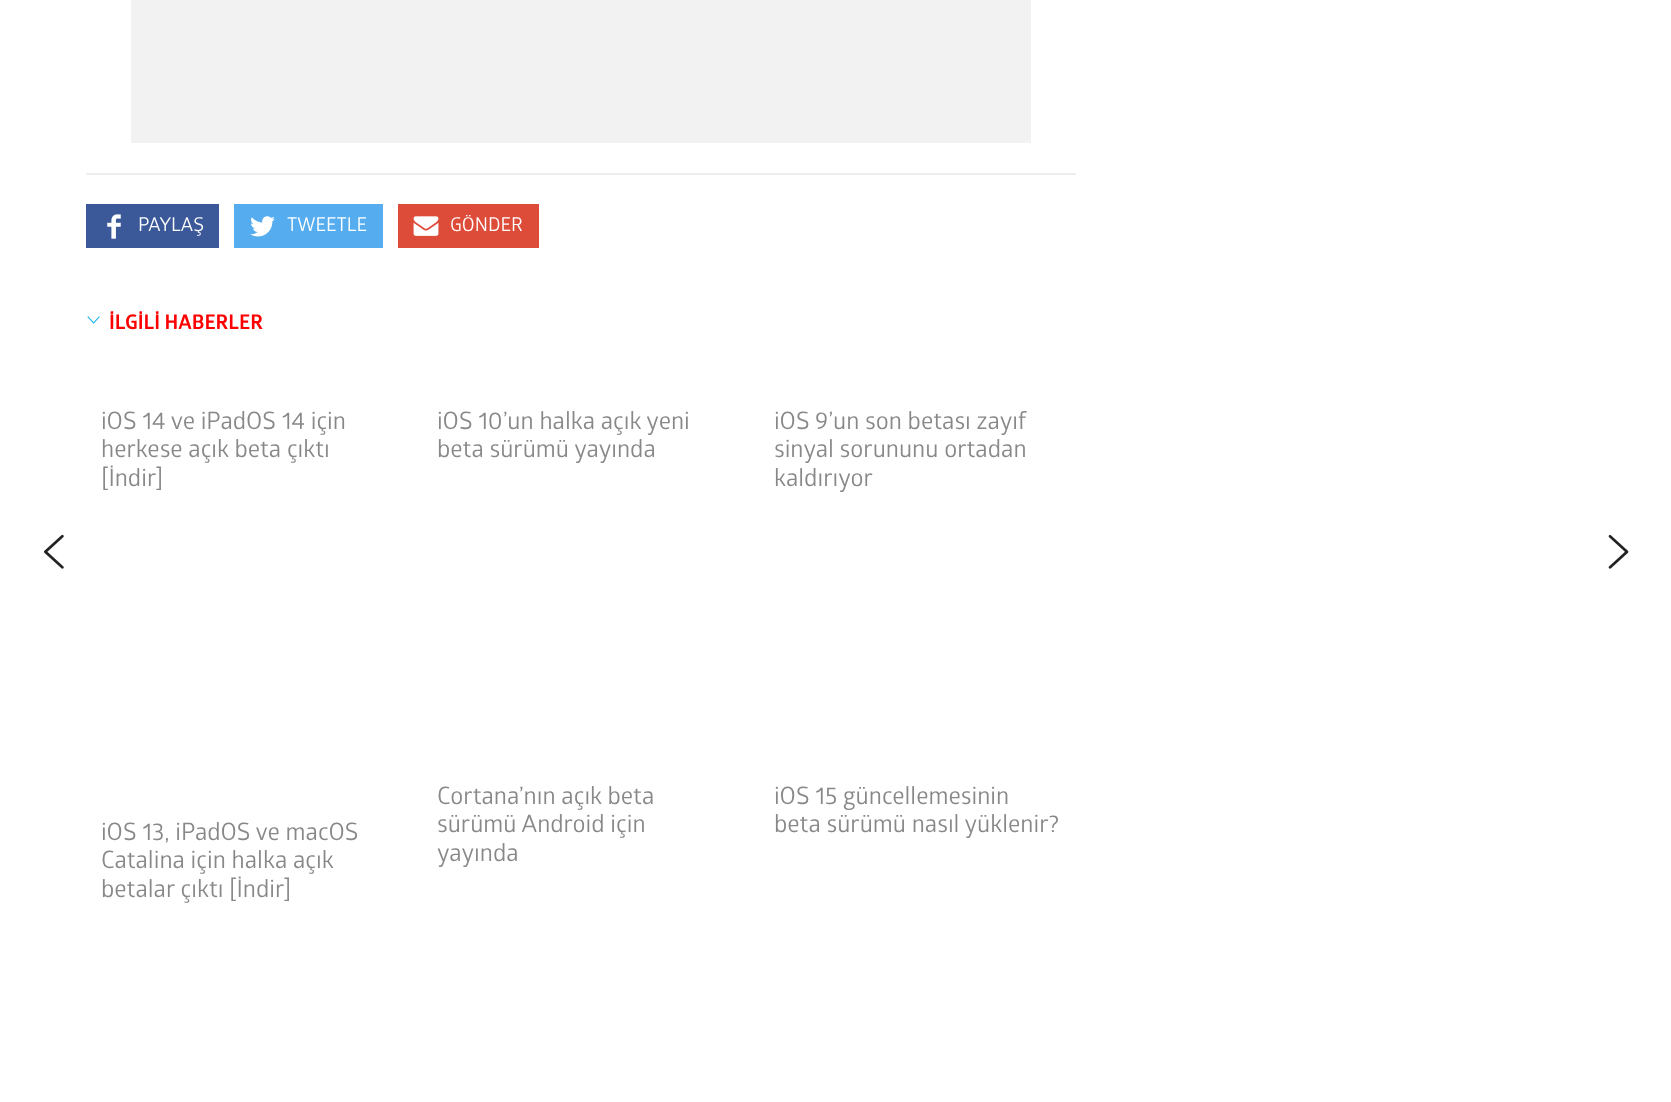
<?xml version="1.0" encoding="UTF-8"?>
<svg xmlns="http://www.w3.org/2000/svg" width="1671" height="1102">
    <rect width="100%" height="100%" fill="#FFFFFF"/>
    <rect x="131" y="0" width="900" height="143" fill="#F2F2F2"/>
    <rect x="86" y="173" width="990" height="2" fill="#EEEEEE"/>
    <rect x="86" y="204" width="133" height="44" fill="#3B5998"/>
    <image x="107" y="214" width="14" height="25" href="img_01.png"/>
    <text x="138" y="231" font-family="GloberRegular" font-size="19" fill="#FFFFFF">PAYLAŞ</text>
    <rect x="234" y="204" width="149" height="44" fill="#55ACEE"/>
    <image x="250" y="216" width="25" height="21" href="img_02.png"/>
    <text x="287" y="231" font-family="GloberRegular" font-size="19" fill="#FFFFFF">TWEETLE</text>
    <rect x="398" y="204" width="141" height="44" fill="#DD4B39"/>
    <image x="413" y="216" width="26" height="20" href="img_03.png"/>
    <text x="450" y="231" font-family="GloberRegular" font-size="19" fill="#FFFFFF">GÖNDER</text>
    <image x="44" y="534" width="20" height="35" href="img_04.png"/>
    <image x="87" y="316" width="13" height="8" href="img_05.png"/>
    <text x="109" y="329" font-family="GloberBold" font-size="20.25" font-weight="700" fill="#FD0100">İLGİLİ HABERLER</text>
    <text font-family="GloberRegular" font-size="24" fill="#888888">
        <tspan x="101" y="429">iOS 14 ve iPadOS 14 için</tspan>
        <tspan x="101" y="457">herkese açık beta çıktı</tspan>
        <tspan x="101" y="486">[İndir]</tspan>
    </text>
    <text font-family="GloberRegular" font-size="24" fill="#888888">
        <tspan x="437" y="429">iOS 10’un halka açık yeni</tspan>
        <tspan x="437" y="457">beta sürümü yayında</tspan>
    </text>
    <text font-family="GloberRegular" font-size="24" fill="#888888">
        <tspan x="774" y="429">iOS 9’un son betası zayıf</tspan>
        <tspan x="774" y="457">sinyal sorununu ortadan</tspan>
        <tspan x="774" y="486">kaldırıyor</tspan>
    </text>
    <text font-family="GloberRegular" font-size="24" fill="#888888">
        <tspan x="437" y="804">Cortana’nın açık beta</tspan>
        <tspan x="437" y="832">sürümü Android için</tspan>
        <tspan x="437" y="861">yayında</tspan>
    </text>
    <text font-family="GloberRegular" font-size="24" fill="#888888">
        <tspan x="774" y="804">iOS 15 güncellemesinin</tspan>
        <tspan x="774" y="832">beta sürümü nasıl yüklenir?</tspan>
    </text>
    <text font-family="GloberRegular" font-size="24" fill="#888888">
        <tspan x="101" y="840">iOS 13, iPadOS ve macOS</tspan>
        <tspan x="101" y="868">Catalina için halka açık</tspan>
        <tspan x="101" y="897">betalar çıktı [İndir]</tspan>
    </text>
    <image x="1608" y="535" width="21" height="34" href="img_06.png"/>
</svg>
